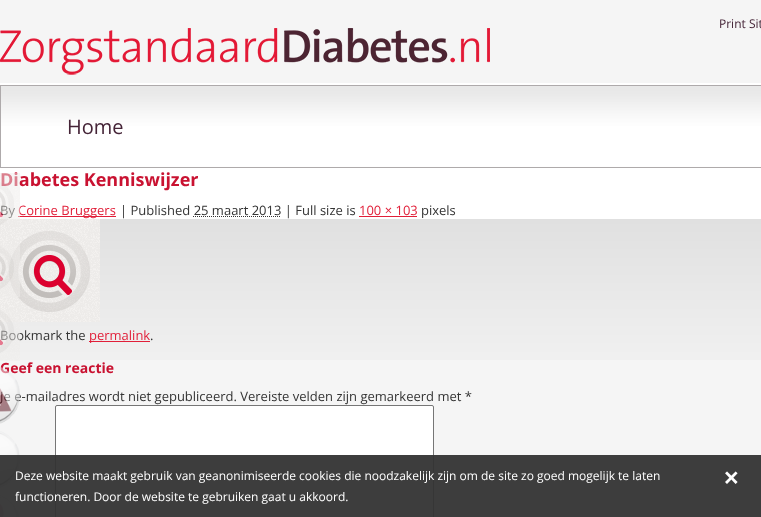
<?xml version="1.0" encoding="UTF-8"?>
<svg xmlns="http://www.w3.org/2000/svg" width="761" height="517">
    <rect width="100%" height="100%" fill="#F5F5F5"/>
    <image x="0" y="219" width="761" height="141" href="img_01.png"/>
    <text x="719" y="28" font-family="Open Sans" font-size="12" fill="#452437">Print Sit</text>
    <image x="0" y="28" width="490" height="47" href="img_02.png"/>
    <rect x="0" y="83" width="761" height="136" fill="#FFFFFF"/>
    <image x="1" y="86" width="760" height="81" href="img_03.png"/>
    <rect x="0.5" y="85.5" width="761" height="82" fill="none" stroke="#AEAAAB"/>
    <text x="67" y="134" font-family="Open Sans" font-size="20" fill="#452437">Home</text>
    <text x="0" y="186" font-family="Open Sans" font-size="18" font-weight="700" fill="#C91231">Diabetes Kenniswijzer</text>
    <text x="0" y="215" font-family="Open Sans" font-size="13" fill="#343434">By</text>
    <rect x="18" y="216" width="98" height="1" fill="#E11F39"/>
    <text x="18" y="215" font-family="Open Sans" font-size="13" fill="#E11F39">Corine Bruggers</text>
    <image x="0" y="219" width="100" height="103" href="img_10.png"/>
    <image x="0" y="173" width="20" height="52" href="img_04.png"/>
    <image x="0" y="244" width="20" height="53" href="img_05.png"/>
    <text x="0" y="340" font-family="Open Sans" font-size="13" fill="#343434">Bookmark the</text>
    <image x="0" y="310" width="20" height="51" href="img_06.png"/>
    <text x="0" y="373" font-family="Open Sans" font-size="14" font-weight="700" fill="#C91231">Geef een reactie</text>
    <text x="0" y="401" font-family="Open Sans" font-size="13" fill="#343434">Je e-mailadres wordt niet gepubliceerd. Vereiste velden zijn gemarkeerd met *</text>
    <image x="0" y="366" width="20" height="58" href="img_07.png"/>
    <image x="0" y="431" width="20" height="57" href="img_08.png"/>
    <image x="0" y="495" width="19" height="22" href="img_09.png"/>
    <text x="120" y="215" font-family="Open Sans" font-size="13" fill="#343434">| Published 25 maart 2013 | Full size is</text>
    <text x="359" y="215" font-family="Open Sans" font-size="13" fill="#E11F39">100 × 103</text>
    <rect x="359" y="216" width="58" height="1" fill="#E11F39"/>
    <text x="421" y="215" font-family="Open Sans" font-size="13" fill="#343434">pixels</text>
    <path d="M 193 216.5 H 281" fill="none" stroke="#343434" stroke-dasharray="1 1"/>
    <rect x="89" y="341" width="61" height="1" fill="#E11F39"/>
    <text x="89" y="340" font-family="Open Sans" font-size="13" fill="#E11F39">permalink</text>
    <text x="150" y="340" font-family="Open Sans" font-size="13" fill="#343434">.</text>
    <rect x="55.5" y="405.5" width="378" height="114" rx="1.5" fill="#FFFFFF" stroke="#767676"/>
    <rect x="0" y="455" width="761" height="62" fill="#333333" fill-opacity="0.95"/>
    <text x="15" y="480" font-family="Open Sans" font-size="12" fill="#FFFFFF">Deze website maakt gebruik van geanonimiseerde cookies die noodzakelijk zijn om de site zo goed mogelijk te laten</text>
    <text x="724" y="486" font-family="Liberation Sans" font-size="25" font-weight="700" fill="#FFFFFF">×</text>
    <text x="15" y="501" font-family="Open Sans" font-size="12" fill="#FFFFFF">functioneren. Door de website te gebruiken gaat u akkoord.</text>
</svg>
